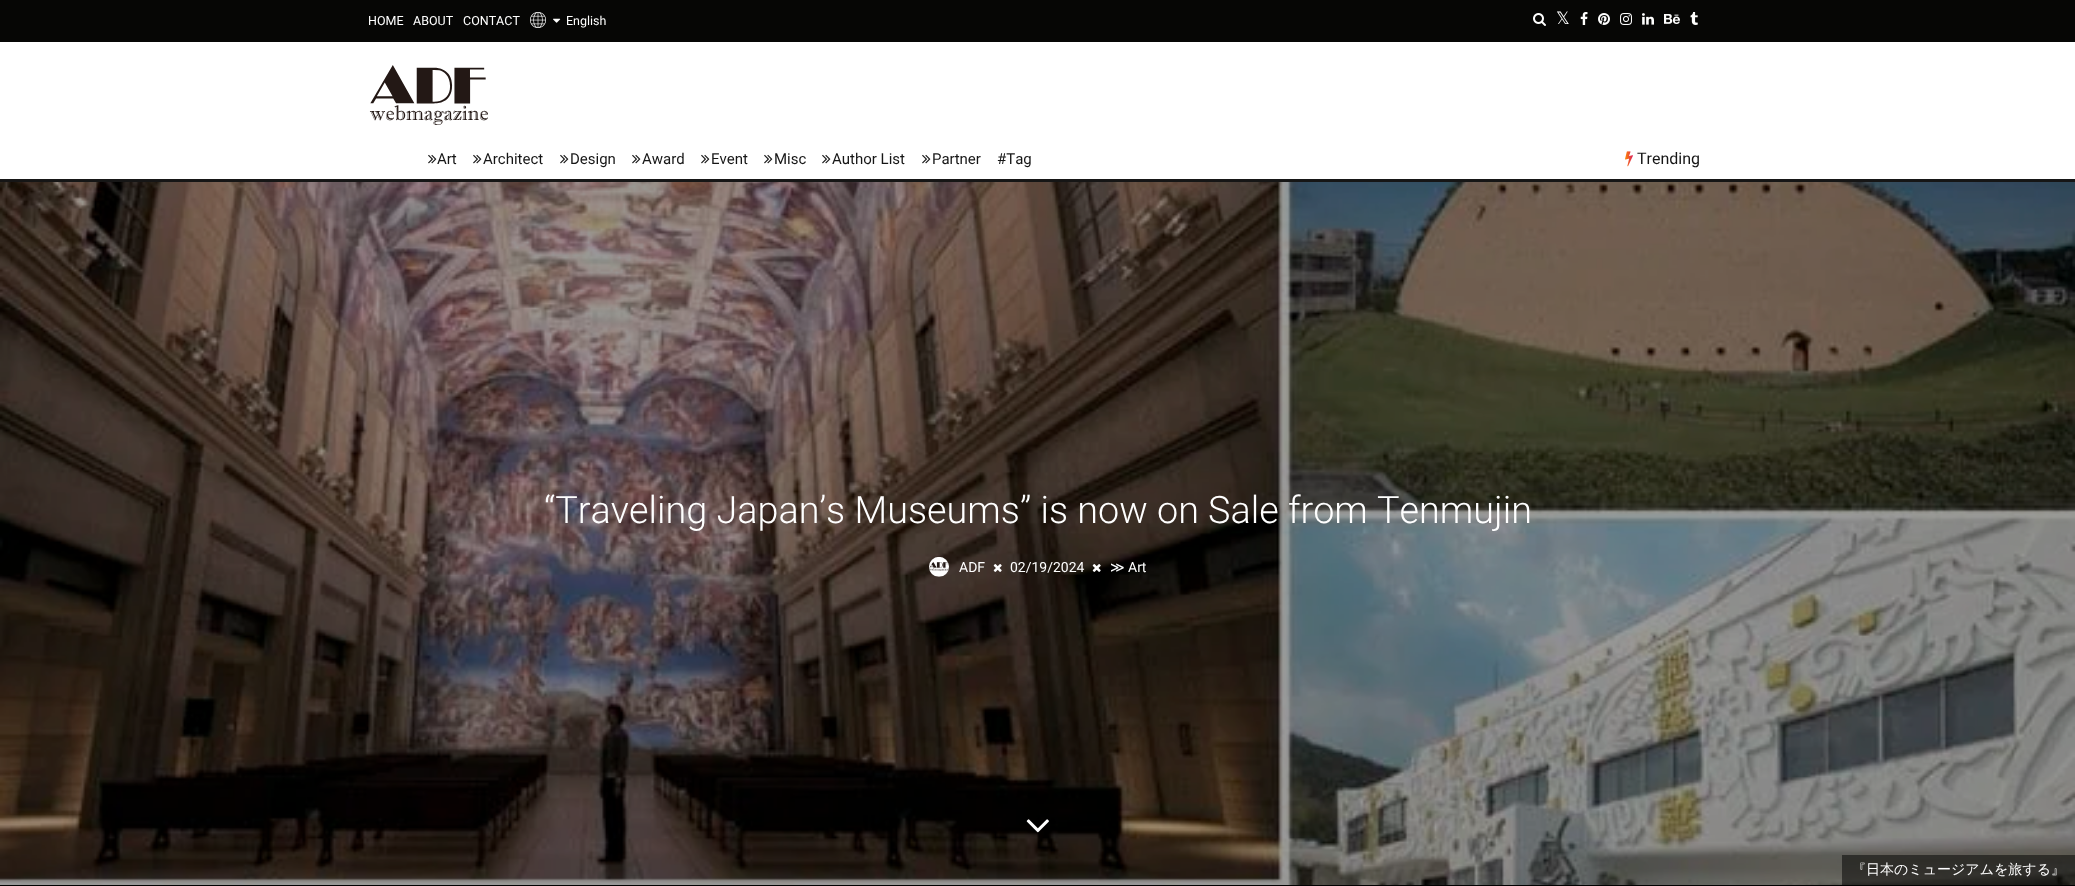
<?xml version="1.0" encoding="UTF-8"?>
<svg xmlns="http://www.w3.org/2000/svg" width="2075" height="886">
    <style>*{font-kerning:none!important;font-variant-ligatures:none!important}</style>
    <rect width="100%" height="100%" fill="#FFFFFF"/>
    <rect x="0" y="0" width="2075" height="42" fill="#060605"/>
    <text x="368" y="25" font-family="Roboto" font-size="12.5" fill="#FFFFFF">HOME</text>
    <text x="413" y="25" font-family="Roboto" font-size="12.5" fill="#FFFFFF">ABOUT</text>
    <text x="463" y="25" font-family="Roboto" font-size="12.5" fill="#FFFFFF">CONTACT</text>
    <image x="530" y="12" width="16" height="16" href="img_01.png"/>
    <image x="553" y="18" width="8" height="5" href="img_02.png"/>
    <text x="566" y="25" font-family="Roboto" font-size="12.5" fill="#FFFFFF">English</text>
    <image x="1533" y="13" width="13" height="13" href="img_03.png"/>
    <text x="1556" y="24" font-family="DejaVu Sans" font-size="17" fill="#FFFFFF">𝕏</text>
    <image x="1580" y="12" width="8" height="13" href="img_04.png"/>
    <image x="1598" y="13" width="12" height="12" href="img_05.png"/>
    <image x="1620" y="13" width="12" height="12" href="img_06.png"/>
    <image x="1642" y="13" width="12" height="12" href="img_07.png"/>
    <image x="1664" y="14" width="16" height="10" href="img_08.png"/>
    <image x="1690" y="12" width="8" height="13" href="img_09.png"/>
    <image x="369" y="65" width="119" height="60" href="img_10.png"/>
    <rect x="0" y="179" width="2075" height="3" fill="#161616"/>
    <image x="428" y="154" width="9" height="10" href="img_11.png"/>
    <text x="437" y="164" font-family="Roboto" font-size="15" fill="#161616">Art</text>
    <image x="473" y="154" width="9" height="10" href="img_11.png"/>
    <text x="483" y="164" font-family="Roboto" font-size="15" fill="#161616">Architect</text>
    <image x="560" y="154" width="9" height="10" href="img_11.png"/>
    <text x="570" y="164" font-family="Roboto" font-size="15" fill="#161616">Design</text>
    <image x="632" y="154" width="9" height="10" href="img_11.png"/>
    <text x="642" y="164" font-family="Roboto" font-size="15" fill="#161616">Award</text>
    <image x="701" y="154" width="9" height="10" href="img_11.png"/>
    <text x="711" y="164" font-family="Roboto" font-size="15" fill="#161616">Event</text>
    <image x="764" y="154" width="9" height="10" href="img_11.png"/>
    <text x="774" y="164" font-family="Roboto" font-size="15" fill="#161616">Misc</text>
    <image x="822" y="154" width="9" height="10" href="img_11.png"/>
    <text x="832" y="164" font-family="Roboto" font-size="15" fill="#161616">Author List</text>
    <image x="922" y="154" width="9" height="10" href="img_11.png"/>
    <text x="932" y="164" font-family="Roboto" font-size="15" fill="#161616">Partner</text>
    <text x="997" y="164" font-family="Roboto" font-size="15" fill="#161616">#Tag</text>
    <image x="1625" y="151" width="8" height="16" href="img_12.png"/>
    <text x="1637" y="164" font-family="Roboto" font-size="16" fill="#161616">Trending</text>
    <rect x="0" y="182" width="2075" height="704" fill="#000000"/>
    <image x="0" y="182" width="2075" height="703" href="img_13.png"/>
    <text x="544" y="523" font-family="Roboto" font-size="37.8" font-weight="300" fill="#FFFFFF">“Traveling Japan’s Museums” is now on Sale from</text>
    <text x="1377" y="523" font-family="Roboto" font-size="37.8" font-weight="300" fill="#FFFFFF">Tenmujin</text>
    <image x="929" y="556" width="20" height="21" href="img_14.png"/>
    <text x="959" y="572" font-family="Roboto" font-size="14" fill="#FFFFFF">ADF</text>
    <image x="993" y="564" width="9" height="8" href="img_15.png"/>
    <text x="1010" y="572" font-family="Roboto" font-size="14" fill="#FFFFFF">02/19/2024</text>
    <image x="1092" y="564" width="9" height="8" href="img_16.png"/>
    <text x="1110" y="572" font-family="DejaVu Sans" font-size="14" fill="#FFFFFF">≫</text>
    <text x="1128" y="572" font-family="Roboto" font-size="14" fill="#FFFFFF">Art</text>
    <image x="1026" y="819" width="23" height="14" href="img_17.png"/>
    <rect x="1842" y="855" width="233" height="30" fill="#000000" fill-opacity="0.5"/>
    <text x="1852" y="874" font-family="WenQuanYi Zen Hei" font-size="14" font-weight="500" fill="#FFFFFF">『日本のミュージアムを旅する』</text>
</svg>
